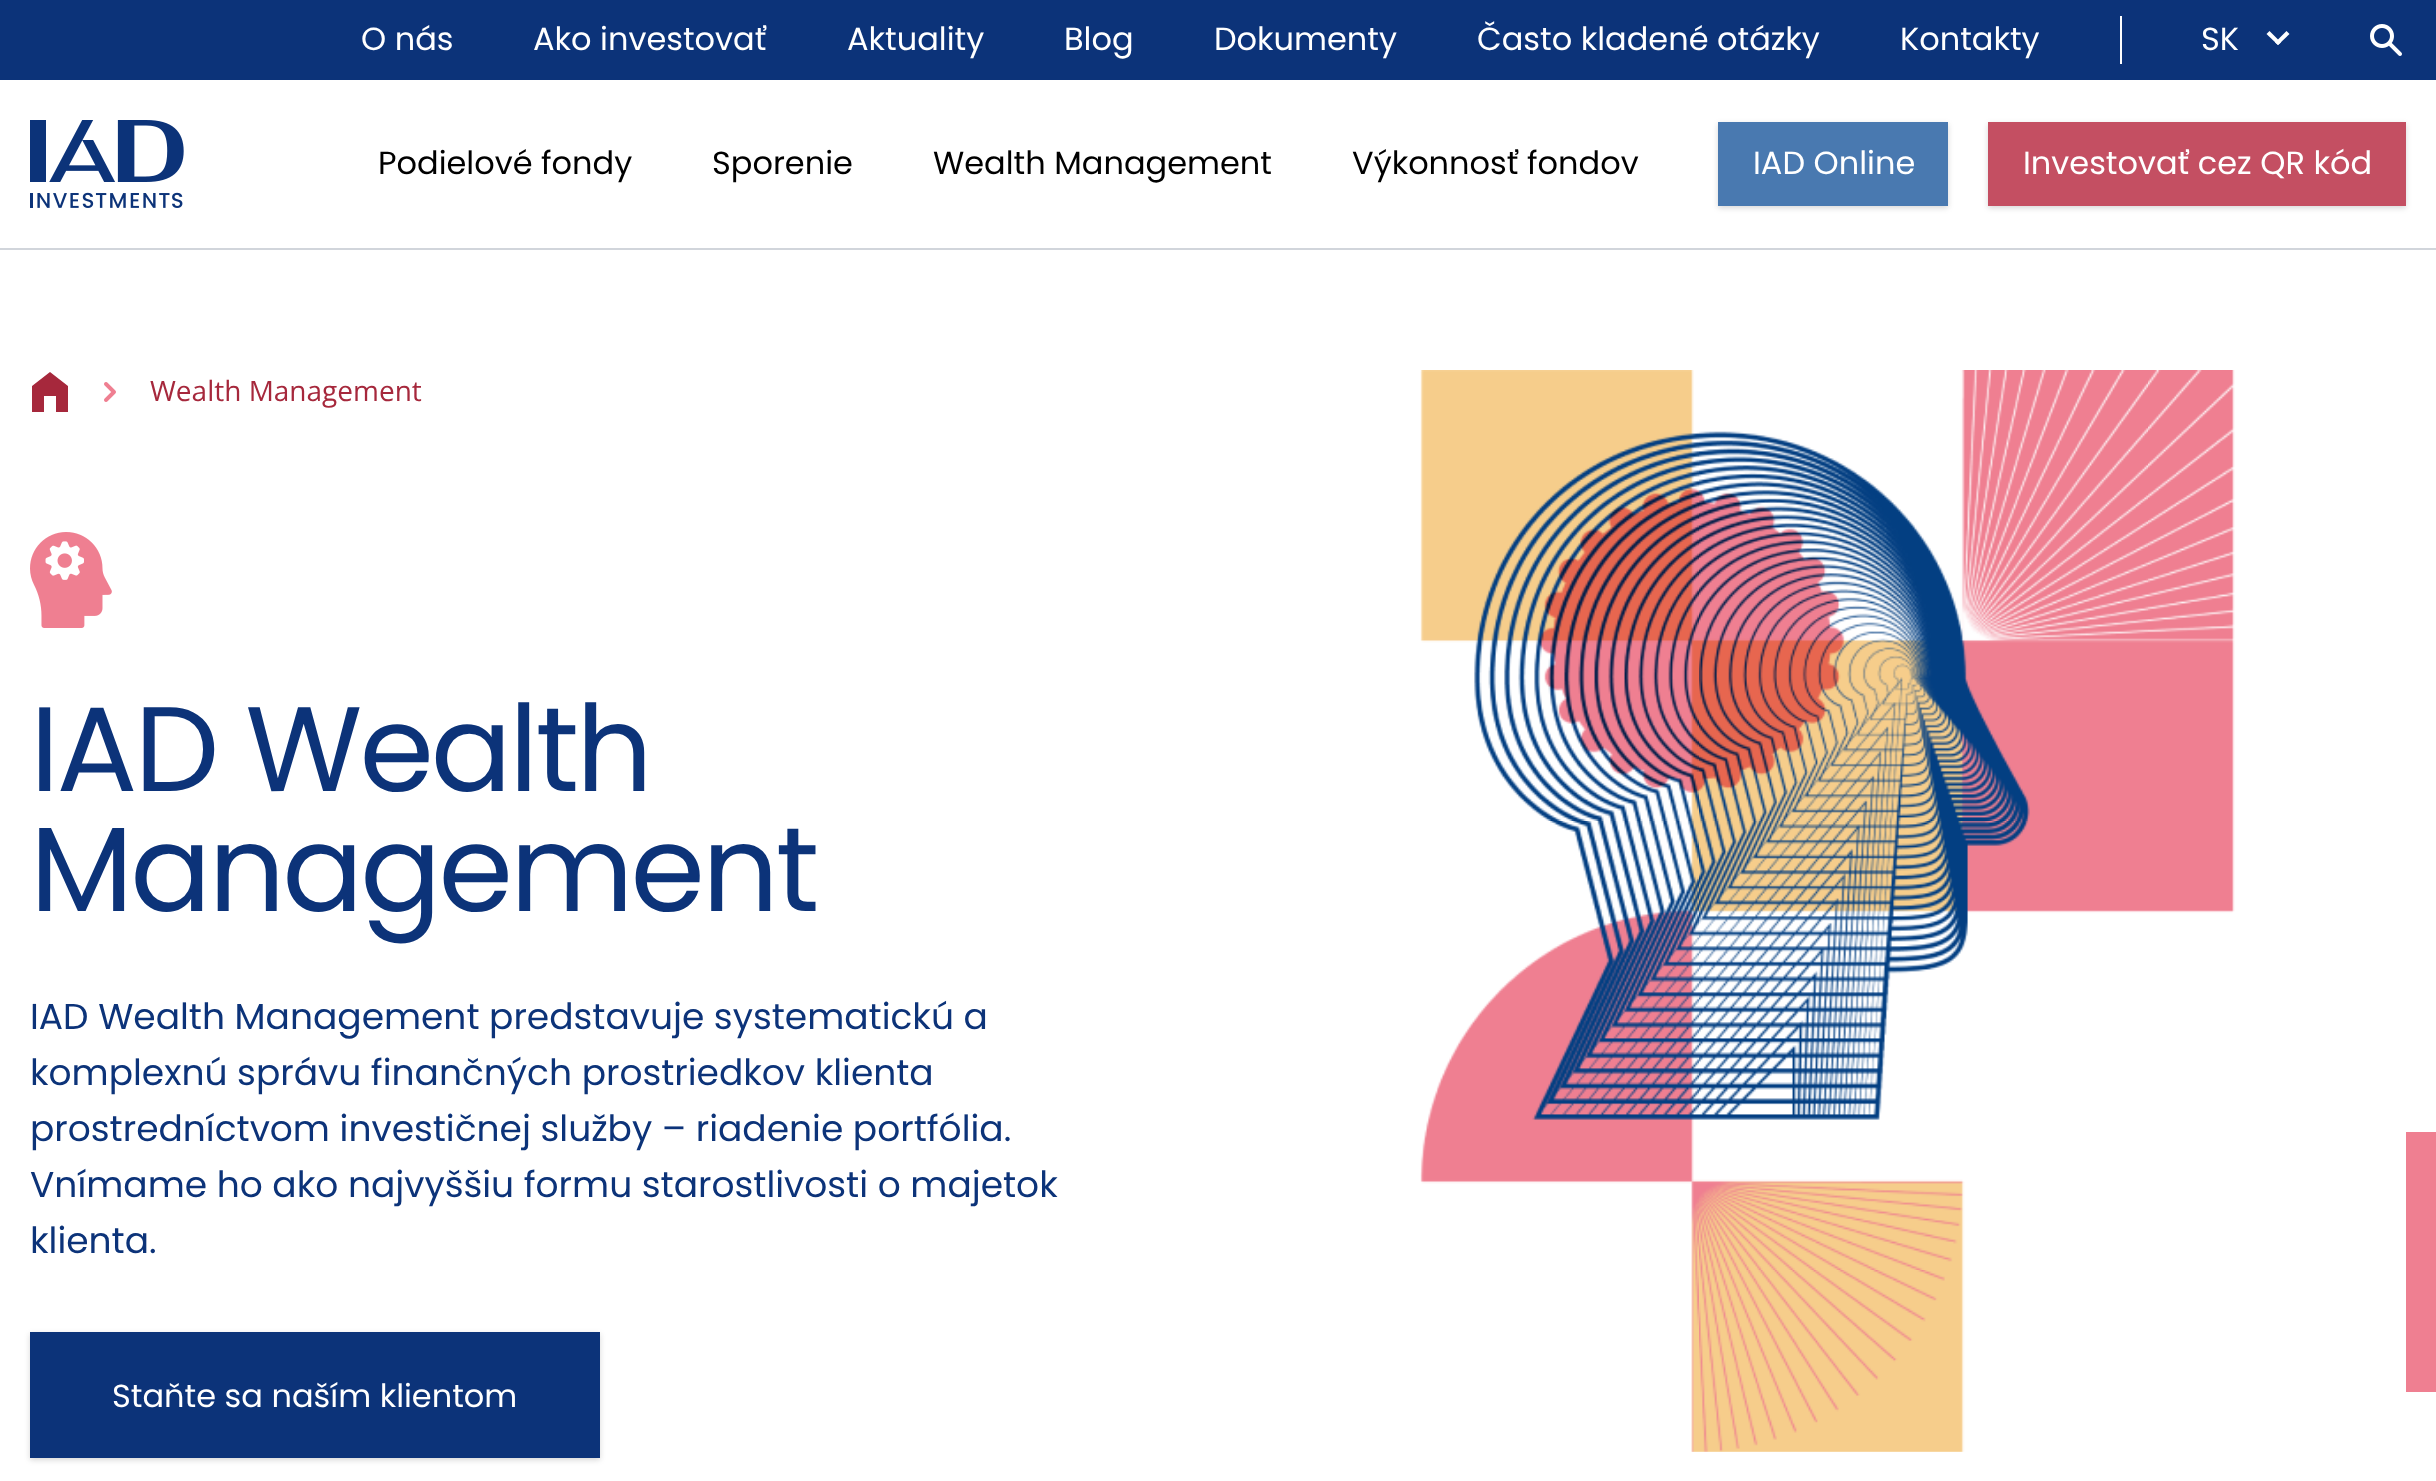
<?xml version="1.0" encoding="UTF-8"?>
<svg xmlns="http://www.w3.org/2000/svg" width="2436" height="1481">
    <defs>
        <filter id="blur1" x="-50%" y="-200%" width="200%" height="500%"><feGaussianBlur stdDeviation="2"/></filter>
        <filter id="blur2" x="-50%" y="-200%" width="200%" height="500%"><feGaussianBlur stdDeviation="3"/></filter>
    </defs>
    <rect width="100%" height="100%" fill="#FFFFFF"/>
    <rect x="0" y="248" width="2436" height="2" fill="#D1D5DB"/>
    <image x="30" y="120" width="154" height="88" href="img_01.png"/>
    <rect x="0" y="0" width="2436" height="80" fill="#0C3379"/>
    <rect x="2120" y="16" width="2" height="48" fill="#FFFFFF"/>
    <text x="361" y="50" font-family="Poppins" font-size="32" fill="#FFFFFF">O nás</text>
    <text x="533" y="50" font-family="Poppins" font-size="32" fill="#FFFFFF">Ako investovať</text>
    <text x="847" y="50" font-family="Poppins" font-size="32" fill="#FFFFFF">Aktuality</text>
    <text x="1064" y="50" font-family="Poppins" font-size="32" fill="#FFFFFF">Blog</text>
    <text x="1214" y="50" font-family="Poppins" font-size="32" fill="#FFFFFF">Dokumenty</text>
    <text x="1477" y="50" font-family="Poppins" font-size="32" fill="#FFFFFF">Často kladené otázky</text>
    <text x="1900" y="50" font-family="Poppins" font-size="32" fill="#FFFFFF">Kontakty</text>
    <text x="2201" y="50" font-family="Poppins" font-size="32" fill="#FFFFFF">SK</text>
    <path d="M 2286.5 31 L 2289.5 34 L 2278 45 L 2275 42.5 Z" fill="#FFFFFF"/>
    <path d="M 2269.5 31 L 2281 42.5 L 2278 45 L 2266.5 34 Z" fill="#FFFFFF"/>
    <image x="2370" y="24" width="32" height="32" href="img_02.png"/>
    <text x="378" y="174" font-family="Poppins" font-size="32" fill="#000000">Podielové fondy</text>
    <text x="712" y="174" font-family="Poppins" font-size="32" fill="#000000">Sporenie</text>
    <text x="933" y="174" font-family="Poppins" font-size="32" fill="#000000">Wealth Management</text>
    <text x="1352" y="174" font-family="Poppins" font-size="32" fill="#000000">Výkonnosť fondov</text>
    <rect x="1718" y="124" width="230" height="84" fill="#000000" fill-opacity="0.06" filter="url(#blur1)"/>
    <rect x="1718" y="124" width="230" height="84" fill="#000000" fill-opacity="0.1" filter="url(#blur2)"/>
    <rect x="1718" y="122" width="230" height="84" fill="#4979B0"/>
    <text x="1753" y="174" font-family="Poppins" font-size="32" fill="#FFFFFF">IAD Online</text>
    <rect x="1988" y="124" width="418" height="84" fill="#000000" fill-opacity="0.06" filter="url(#blur1)"/>
    <rect x="1988" y="124" width="418" height="84" fill="#000000" fill-opacity="0.1" filter="url(#blur2)"/>
    <rect x="1988" y="122" width="418" height="84" fill="#C44F62"/>
    <text x="2023" y="174" font-family="Poppins" font-size="32" fill="#FFFFFF">Investovať cez QR kód</text>
    <path d="M 50 372 L 32 386 V 412 H 44 V 396 H 56 V 412 H 68 V 386 Z" fill="#A6283C"/>
    <image x="104" y="382" width="12" height="20" href="img_03.png"/>
    <text x="150" y="401" font-family="Open Sans" font-size="28" fill="#A6283C">Wealth Management</text>
    <image x="30" y="532" width="82" height="96" href="img_04.png"/>
    <text font-family="Poppins" font-size="120" letter-spacing="-3" fill="#0C3379">
        <tspan x="30" y="791">IAD Wealth</tspan>
        <tspan x="30" y="911">Management</tspan>
    </text>
    <text font-family="Poppins" font-size="36" fill="#0C3379">
        <tspan x="30" y="1029">IAD Wealth Management predstavuje systematickú a</tspan>
        <tspan x="30" y="1085">komplexnú správu finančných prostriedkov klienta</tspan>
        <tspan x="30" y="1141">prostredníctvom investičnej služby – riadenie portfólia.</tspan>
        <tspan x="30" y="1197">Vnímame ho ako najvyššiu formu starostlivosti o majetok</tspan>
        <tspan x="30" y="1253">klienta.</tspan>
    </text>
    <rect x="30" y="1334" width="570" height="126" fill="#000000" fill-opacity="0.06" filter="url(#blur1)"/>
    <rect x="30" y="1334" width="570" height="126" fill="#000000" fill-opacity="0.1" filter="url(#blur2)"/>
    <rect x="30" y="1332" width="570" height="126" fill="#0C3379"/>
    <text x="112" y="1407" font-family="Poppins" font-size="32" fill="#FFFFFF">Staňte sa naším klientom</text>
    <image x="1420" y="370" width="815" height="1082" href="img_05.png"/>
    <rect x="2406" y="1132" width="30" height="260" fill="#EF7F91"/>
</svg>
